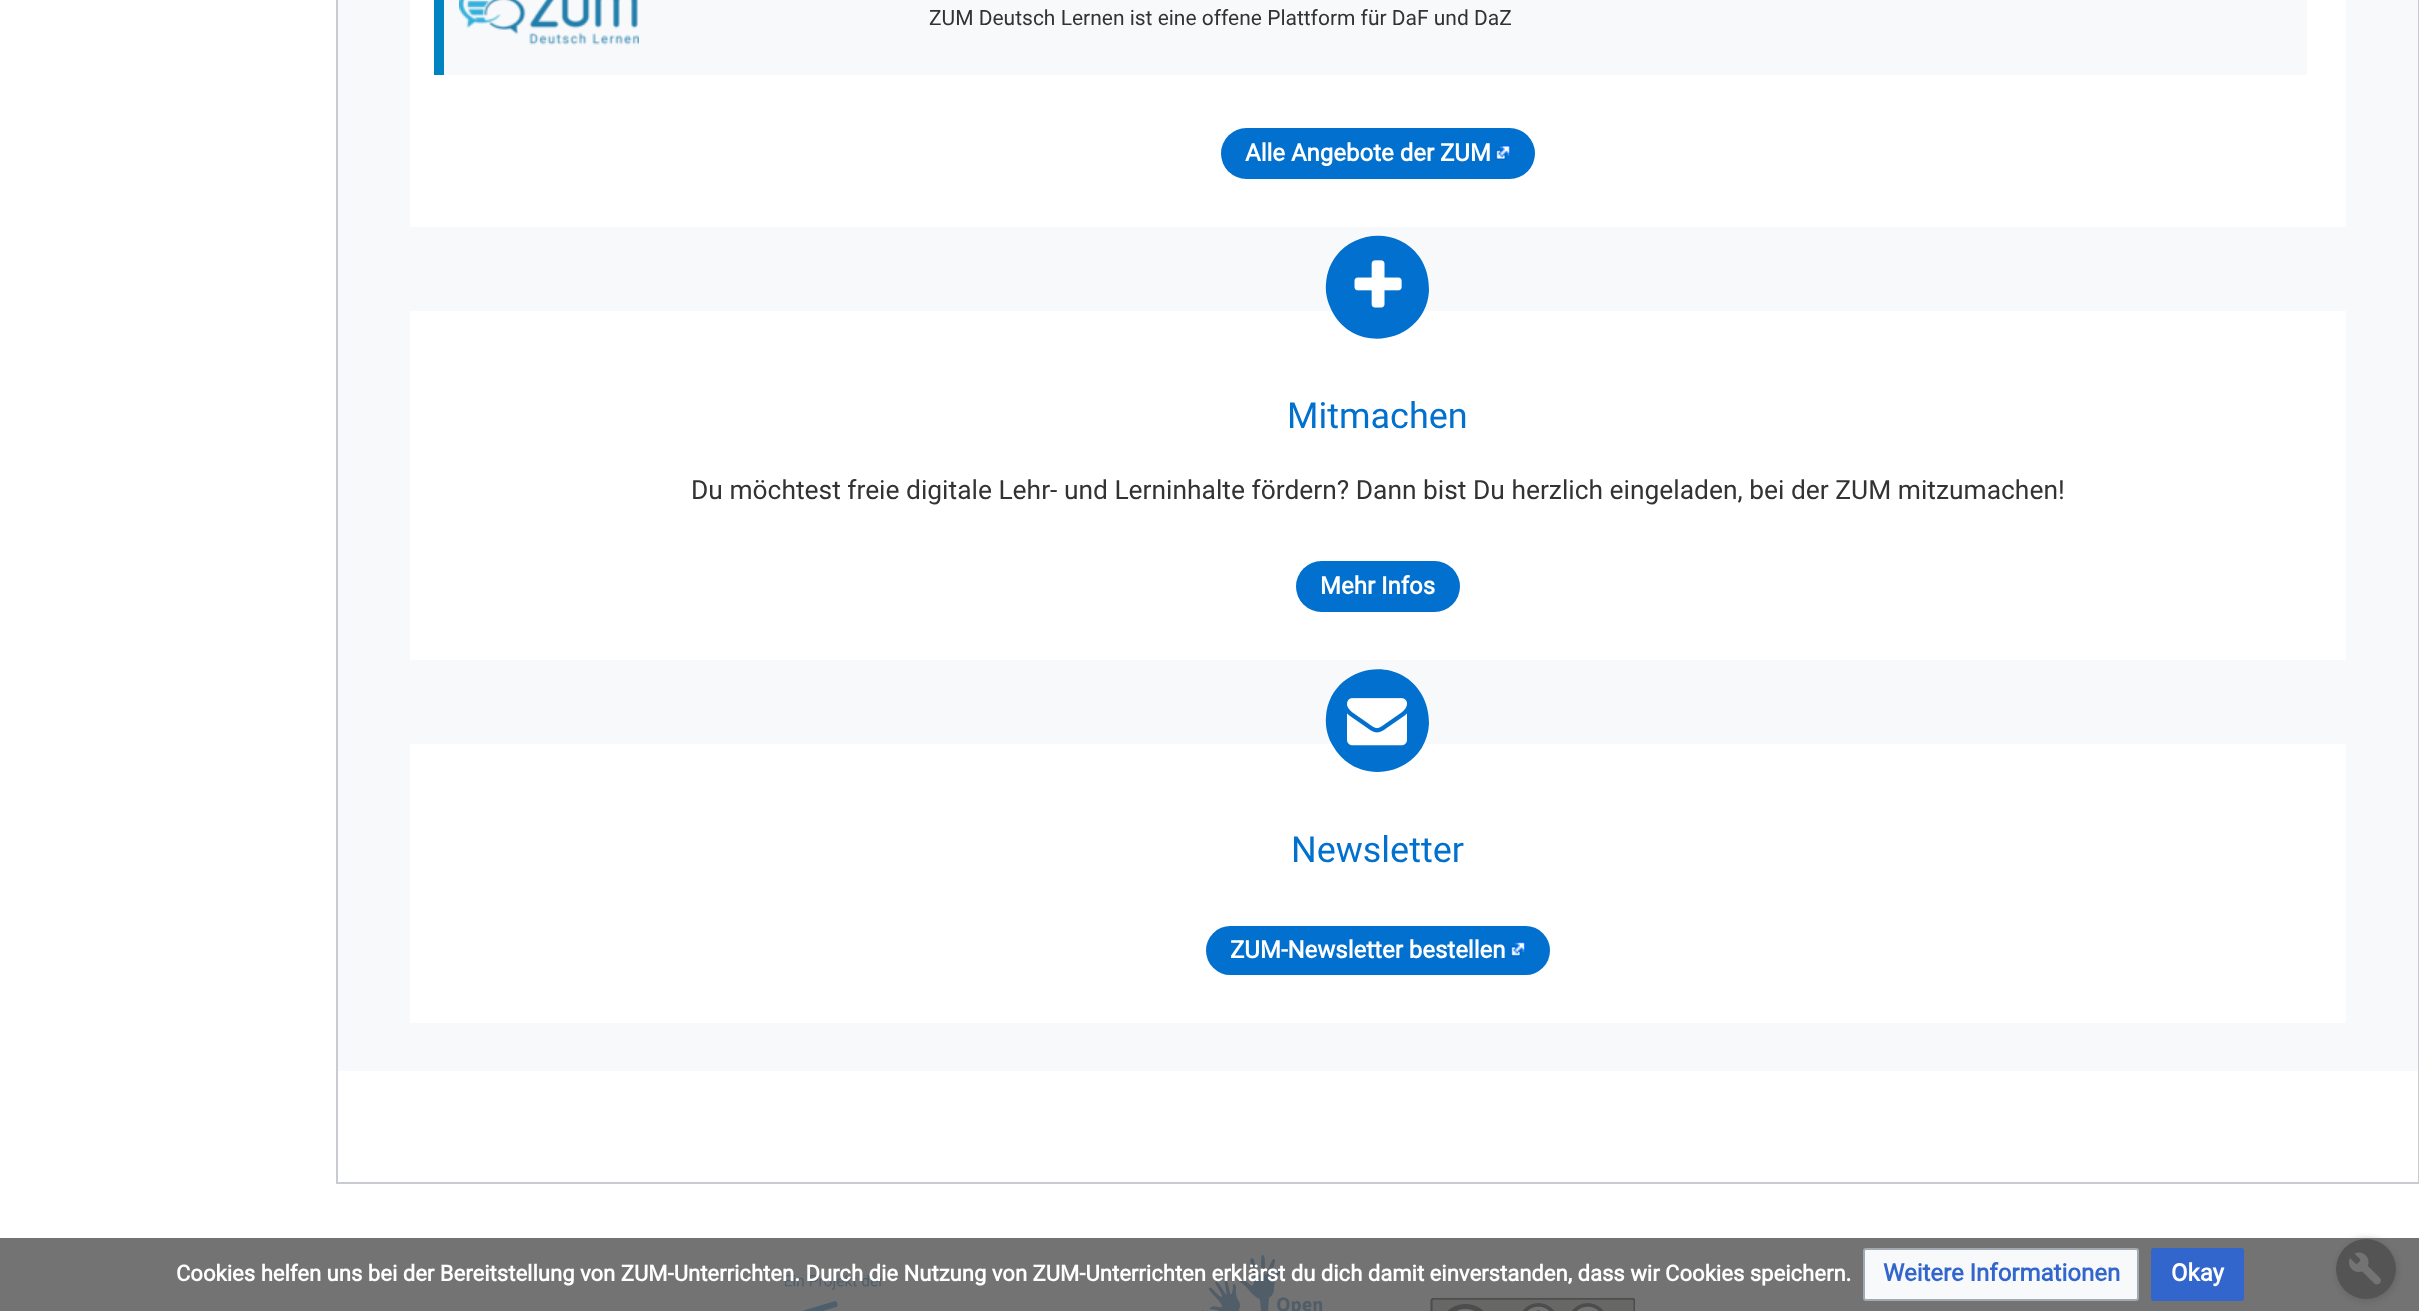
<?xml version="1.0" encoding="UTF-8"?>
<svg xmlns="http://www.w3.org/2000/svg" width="2419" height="1311">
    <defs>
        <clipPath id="clip1"><path d="M 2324 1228 H 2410 V 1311 H 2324 Z M 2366 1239 C 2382.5 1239 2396 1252.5 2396 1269 C 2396 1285.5 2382.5 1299 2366 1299 C 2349.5 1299 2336 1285.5 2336 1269 C 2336 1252.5 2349.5 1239 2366 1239 Z" clip-rule="evenodd"/></clipPath>
        <filter id="blur1" x="-50%" y="-200%" width="200%" height="500%"><feGaussianBlur stdDeviation="4"/></filter>
    </defs>
    <rect width="100%" height="100%" fill="#FFFFFF"/>
    <rect x="337" y="-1" width="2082" height="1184" fill="none" stroke="#C8CCD1" stroke-width="2"/>
    <rect x="338" y="0" width="2080" height="1071" fill="#F8F9FA"/>
    <rect x="410" y="0" width="1936" height="227" fill="#FFFFFF"/>
    <rect x="444" y="0" width="1863" height="75" fill="#F8F9FA"/>
    <rect x="434" y="0" width="10" height="75" fill="#0084C1"/>
    <image x="459" y="0" width="180" height="45" href="img_01.png"/>
    <text x="929" y="25" font-family="Roboto" font-size="21" fill="#333333">ZUM Deutsch Lernen ist eine offene Plattform für DaF und DaZ</text>
    <rect x="1221" y="128" width="314" height="51" rx="25.5" fill="#0170CE"/>
    <text x="1245" y="161" font-family="Roboto" font-size="24" font-weight="700" fill="#FFFFFF">Alle Angebote der ZUM</text>
    <image x="1495" y="145" width="16" height="15" href="img_02.png"/>
    <rect x="410" y="311" width="1936" height="349" fill="#FFFFFF"/>
    <path d="M 1422 261 C 1427 270 1429 280 1429 291 C 1426 341 1358 357 1333 313 C 1328 304 1325 294 1326 284 C 1329 233 1397 218 1422 261 Z" fill="#0170CE"/>
    <image x="1354" y="260" width="48" height="48" href="img_03.png"/>
    <text x="1287" y="428" font-family="Roboto" font-size="36" fill="#0170CE">Mitmachen</text>
    <text x="691" y="499" font-family="Roboto" font-size="26.4" fill="#333333">Du möchtest freie digitale Lehr- und Lerninhalte fördern? Dann bist Du herzlich eingeladen, bei der ZUM mitzumachen!</text>
    <rect x="1296" y="561" width="164" height="51" rx="25.5" fill="#0170CE"/>
    <text x="1320" y="594" font-family="Roboto" font-size="24" font-weight="700" fill="#FFFFFF">Mehr Infos</text>
    <rect x="410" y="744" width="1936" height="279" fill="#FFFFFF"/>
    <path d="M 1422 695 C 1427 704 1429 714 1429 724 C 1426 775 1358 790 1333 746 C 1328 738 1325 727 1326 717 C 1329 667 1397 651 1422 695 Z" fill="#0170CE"/>
    <image x="1347" y="698" width="60" height="48" href="img_04.png"/>
    <text x="1291" y="862" font-family="Roboto" font-size="36" fill="#0170CE">Newsletter</text>
    <rect x="1206" y="926" width="344" height="49" rx="24.5" fill="#0170CE"/>
    <text x="1230" y="958" font-family="Roboto" font-size="24" font-weight="700" fill="#FFFFFF">ZUM-Newsletter bestellen</text>
    <image x="1510" y="941" width="16" height="16" href="img_05.png"/>
    <g clip-path="url(#clip1)">
        <rect x="2337" y="1241" width="60" height="60" rx="30" fill="#999999" filter="url(#blur1)"/>
    </g>
    <circle cx="2366" cy="1269" r="30" fill="#000000" fill-opacity="0.8"/>
    <image x="2349" y="1252" width="32" height="33" href="img_06.png"/>
    <image x="785" y="1275" width="99" height="36" href="img_07.png"/>
    <image x="1201" y="1255" width="122" height="56" href="img_08.png"/>
    <image x="1430" y="1298" width="205" height="13" href="img_09.png"/>
    <rect x="0" y="1238" width="2419" height="73" fill="#5A5A5A" fill-opacity="0.85"/>
    <text x="176" y="1281" font-family="Roboto" font-size="22.08" font-weight="700" fill="#FFFFFF">Cookies helfen uns bei der Bereitstellung von ZUM-Unterrichten. Durch die Nutzung von ZUM-Unterrichten erklärst du dich damit einverstanden, dass wir Cookies speichern.</text>
    <rect x="1864" y="1249" width="274" height="51" rx="2" fill="#F8F9FA" stroke="#A2A9B1" stroke-width="2"/>
    <text x="1883" y="1281" font-family="Roboto" font-size="24" font-weight="700" fill="#3366CC">Weitere Informationen</text>
    <rect x="2152" y="1249" width="91" height="51" rx="2" fill="#3366CC" stroke="#3366CC" stroke-width="2"/>
    <text x="2171" y="1281" font-family="Roboto" font-size="24" font-weight="700" fill="#FFFFFF">Okay</text>
</svg>
